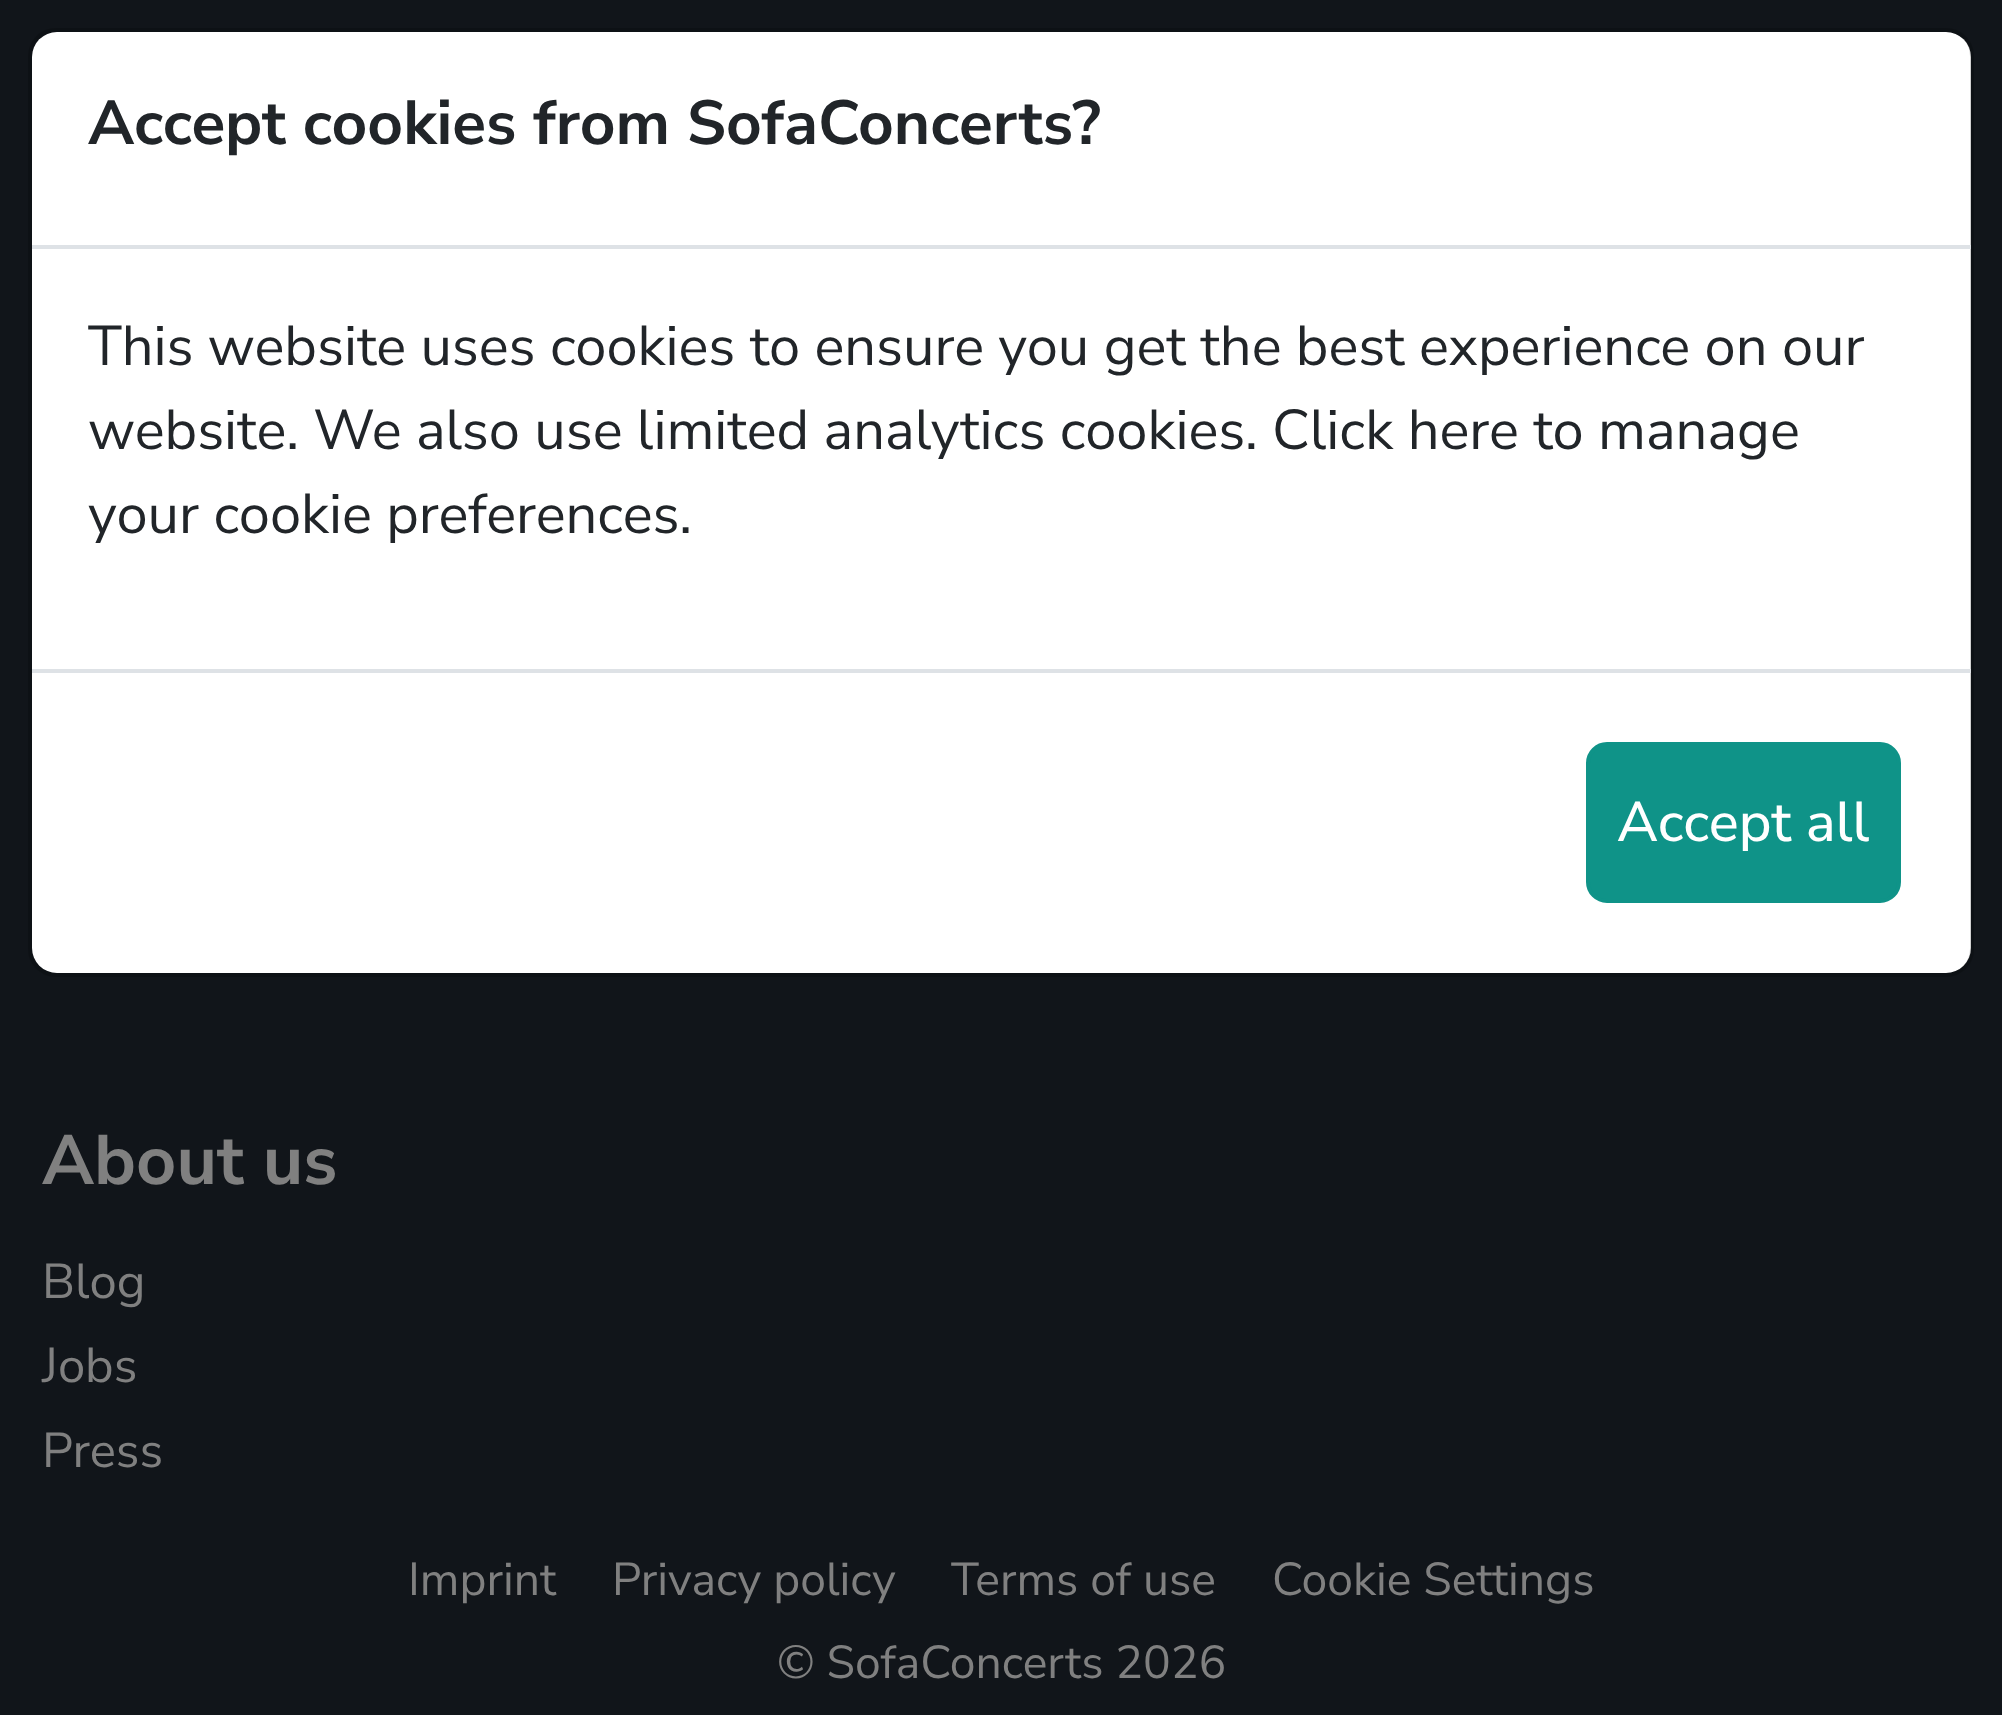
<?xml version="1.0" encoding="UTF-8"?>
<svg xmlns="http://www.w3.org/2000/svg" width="2002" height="1715">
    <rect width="100%" height="100%" fill="#11151A"/>
    <rect x="32" y="32" width="1939" height="941" rx="25" fill="#FFFFFF"/>
    <rect x="30" y="30" width="1942" height="945" rx="26" fill="none" stroke="#000000" stroke-opacity="0.18" stroke-width="4"/>
    <rect x="32" y="245" width="1939" height="4" fill="#DEE2E6"/>
    <text x="88" y="144" font-family="Nunito Sans" font-size="62.2" font-weight="700" fill="#212529">Accept cookies from SofaConcerts?</text>
    <text font-family="Nunito Sans" font-size="56" fill="#212529">
        <tspan x="88" y="365">This website uses cookies to ensure you get the best experience on our</tspan>
        <tspan x="88" y="449">website. We also use limited analytics cookies. Click here to manage</tspan>
        <tspan x="88" y="533">your cookie preferences.</tspan>
    </text>
    <rect x="32" y="669" width="1939" height="4" fill="#DEE2E6"/>
    <rect x="1588" y="744" width="311" height="157" rx="19" fill="#0F9388" stroke="#0F9388" stroke-width="4"/>
    <text x="1617" y="841" font-family="Nunito Sans" font-size="56" font-weight="500" fill="#FFFFFF">Accept all</text>
    <text x="42" y="1184" font-family="Nunito Sans" font-size="70" font-weight="700" fill="#808080">About us</text>
    <text font-family="Nunito Sans" font-size="49" fill="#808080">
        <tspan x="42" y="1298">Blog</tspan>
        <tspan x="42" y="1382">Jobs</tspan>
        <tspan x="42" y="1467">Press</tspan>
    </text>
    <text x="408" y="1595" font-family="Nunito Sans" font-size="46.25" fill="#808080">Imprint</text>
    <text x="612" y="1595" font-family="Nunito Sans" font-size="46.25" fill="#808080">Privacy policy</text>
    <text x="951" y="1595" font-family="Nunito Sans" font-size="46.25" fill="#808080">Terms of use</text>
    <text x="1272" y="1595" font-family="Nunito Sans" font-size="46.25" fill="#808080">Cookie Settings</text>
    <text x="777" y="1678" font-family="Nunito Sans" font-size="46.25" fill="#808080">© SofaConcerts 2026</text>
</svg>
